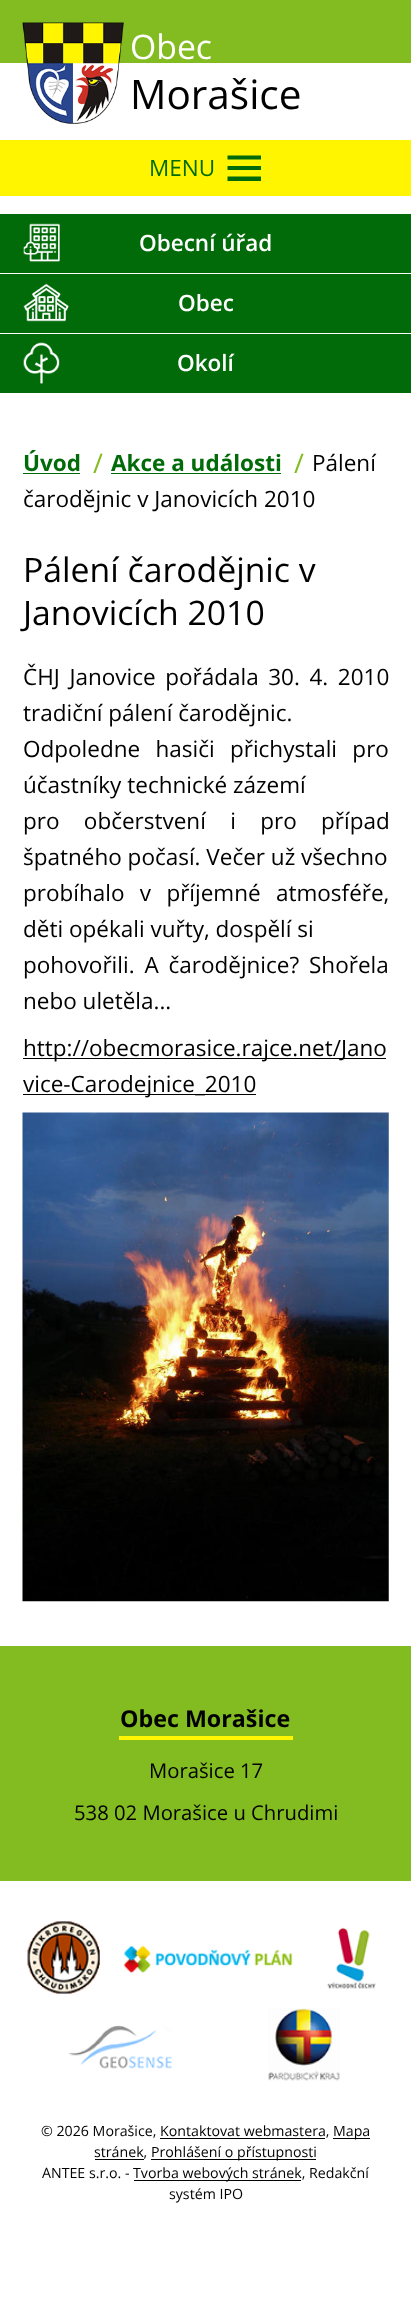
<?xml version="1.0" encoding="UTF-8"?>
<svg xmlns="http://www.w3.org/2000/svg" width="411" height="2298">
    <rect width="100%" height="100%" fill="#FFFFFF"/>
    <rect x="0" y="0" width="411" height="63" fill="#83BC20"/>
    <image x="22" y="22" width="102" height="102" href="img_01.png"/>
    <text x="130" y="59" font-family="Open Sans" font-size="33.75" fill="#FFFFFF">Obec</text>
    <text x="130" y="109" font-family="Open Sans" font-size="40.5" fill="#000000">Morašice</text>
    <rect x="0" y="214" width="411" height="59" fill="#006B08"/>
    <image x="23" y="223" width="37" height="39" href="img_02.png"/>
    <text x="139" y="251" font-family="Open Sans" font-size="22.5" font-weight="600" fill="#FFFFFF">Obecní úřad</text>
    <rect x="0" y="274" width="411" height="59" fill="#006B08"/>
    <image x="23" y="283" width="46" height="39" href="img_03.png"/>
    <text x="178" y="311" font-family="Open Sans" font-size="22.5" font-weight="600" fill="#FFFFFF">Obec</text>
    <rect x="0" y="334" width="411" height="59" fill="#006B08"/>
    <image x="23" y="342" width="37" height="42" href="img_04.png"/>
    <text x="177" y="371" font-family="Open Sans" font-size="22.5" font-weight="600" fill="#FFFFFF">Okolí</text>
    <rect x="0" y="140" width="411" height="56" fill="#FFF500"/>
    <text x="149" y="176" font-family="Open Sans" font-size="22.5" fill="#006B08">MENU</text>
    <path d="M 227.5 181 V 176.5 H 261 V 181 Z M 227.5 155.5 H 261 V 159.5 H 227.5 Z M 227.5 170 V 166 H 261 V 170 Z" fill="#006B08"/>
    <text x="23" y="471" font-family="Open Sans" font-size="22.5" font-weight="700" fill="#006B08">Úvod</text>
    <rect x="23" y="473" width="57" height="1" fill="#006B08"/>
    <text x="93" y="473" font-family="Open Sans" font-size="27" fill="#83BC20">/</text>
    <text x="111" y="471" font-family="Open Sans" font-size="22.5" font-weight="700" fill="#006B08">Akce a události</text>
    <rect x="111" y="473" width="170" height="1" fill="#006B08"/>
    <text x="294" y="473" font-family="Open Sans" font-size="27" fill="#83BC20">/</text>
    <text x="312" y="471" font-family="Open Sans" font-size="22.5" fill="#000000">Pálení</text>
    <text x="23" y="507" font-family="Open Sans" font-size="22.5" fill="#000000">čarodějnic v Janovicích 2010</text>
    <text font-family="Open Sans" font-size="33.75" fill="#000000">
        <tspan x="23" y="582">Pálení čarodějnic v</tspan>
        <tspan x="23" y="625">Janovicích 2010</tspan>
    </text>
    <text font-family="Open Sans" font-size="22.5" fill="#000000">
        <tspan x="23" y="685" word-spacing="3.75">ČHJ Janovice pořádala 30. 4. 2010</tspan>
        <tspan x="23" y="721">tradiční pálení čarodějnic.</tspan>
        <tspan x="23" y="757" word-spacing="9.5">Odpoledne hasiči přichystali pro</tspan>
        <tspan x="23" y="793">účastníky technické zázemí</tspan>
        <tspan x="23" y="829" word-spacing="18.5">pro občerstvení i pro případ</tspan>
        <tspan x="23" y="865">špatného počasí. Večer už všechno</tspan>
        <tspan x="23" y="901" word-spacing="9.5">probíhalo v příjemné atmosféře,</tspan>
        <tspan x="23" y="937">děti opékali vuřty, dospělí si</tspan>
        <tspan x="23" y="973" word-spacing="4">pohovořili. A čarodějnice? Shořela</tspan>
        <tspan x="23" y="1009">nebo uletěla...</tspan>
    </text>
    <rect x="23" y="1058" width="363" height="1" fill="#000000"/>
    <text x="23" y="1056" font-family="Open Sans" font-size="22.5" fill="#000000">http://obecmorasice.rajce.net/Jano</text>
    <rect x="23" y="1094" width="233" height="1" fill="#000000"/>
    <text x="23" y="1092" font-family="Open Sans" font-size="22.5" fill="#000000">vice-Carodejnice_2010</text>
    <image x="22" y="1112" width="367" height="490" href="img_05.png"/>
    <rect x="0" y="1646" width="411" height="235" fill="#83BC20"/>
    <text x="120" y="1727" font-family="Open Sans" font-size="23.25" font-weight="700" fill="#000000">Obec Morašice</text>
    <rect x="119" y="1736" width="174" height="4" fill="#FFF500"/>
    <text x="149" y="1778" font-family="Open Sans" font-size="20.25" fill="#000000">Morašice 17</text>
    <text x="74" y="1820" font-family="Open Sans" font-size="20.25" fill="#000000">538 02 Morašice u Chrudimi</text>
    <image x="27" y="1921" width="73" height="73" href="img_06.png"/>
    <image x="124" y="1945" width="169" height="28" href="img_07.png"/>
    <image x="327" y="1927" width="49" height="62" href="img_08.png"/>
    <image x="68" y="2025" width="104" height="44" href="img_09.png"/>
    <image x="268" y="2008" width="72" height="73" href="img_10.png"/>
    <text x="41" y="2136" font-family="Open Sans" font-size="14.2" fill="#000000">© 2026 Morašice, Kontaktovat webmastera,</text>
    <rect x="333" y="2138" width="37" height="1" fill="#000000"/>
    <text x="333" y="2136" font-family="Open Sans" font-size="14.2" fill="#000000">Mapa</text>
    <rect x="160" y="2138" width="165" height="1" fill="#000000"/>
    <text x="94" y="2157" font-family="Open Sans" font-size="14.2" fill="#000000">stránek,</text>
    <rect x="95" y="2159" width="49" height="1" fill="#000000"/>
    <rect x="151" y="2159" width="165" height="1" fill="#000000"/>
    <text x="151" y="2157" font-family="Open Sans" font-size="14.2" fill="#000000">Prohlášení o přístupnosti</text>
    <text x="42" y="2178" font-family="Open Sans" font-size="14.2" fill="#000000">ANTEE s.r.o. -</text>
    <rect x="134" y="2180" width="167" height="1" fill="#000000"/>
    <text x="133" y="2178" font-family="Open Sans" font-size="14.2" fill="#000000">Tvorba webových stránek, Redakční</text>
    <text x="169" y="2199" font-family="Open Sans" font-size="14.2" fill="#000000">systém IPO</text>
</svg>
